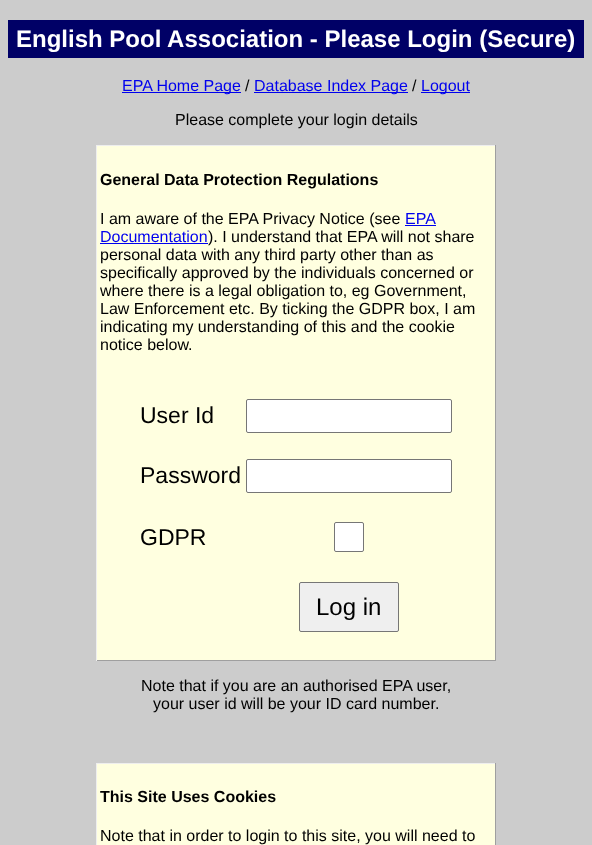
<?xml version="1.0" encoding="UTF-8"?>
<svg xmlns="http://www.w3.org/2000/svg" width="592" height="845">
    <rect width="100%" height="100%" fill="#CCCCCC"/>
    <rect x="8" y="20" width="576" height="38" fill="#000066"/>
    <text x="16" y="47" font-family="Liberation Sans" font-size="24" font-weight="700" fill="#FFFFFF">English Pool Association - Please Login (Secure)</text>
    <rect x="122" y="92" width="119" height="1" fill="#0000EE"/>
    <text x="122" y="91" font-family="Liberation Sans" font-size="16" fill="#0000EE">EPA Home Page</text>
    <text x="245" y="91" font-family="Liberation Sans" font-size="16" fill="#000000">/</text>
    <rect x="254" y="92" width="154" height="1" fill="#0000EE"/>
    <text x="254" y="91" font-family="Liberation Sans" font-size="16" fill="#0000EE">Database Index Page</text>
    <text x="412" y="91" font-family="Liberation Sans" font-size="16" fill="#000000">/</text>
    <rect x="421" y="92" width="49" height="1" fill="#0000EE"/>
    <text x="421" y="91" font-family="Liberation Sans" font-size="16" fill="#0000EE">Logout</text>
    <text x="175" y="125" font-family="Liberation Sans" font-size="16" fill="#000000">Please complete your login details</text>
    <rect x="97" y="146" width="398" height="514" fill="#FFFFE0"/>
    <rect x="96" y="145" width="400" height="1" fill="#EEEEEE"/>
    <rect x="495" y="145" width="1" height="516" fill="#9F9F9F"/>
    <rect x="96" y="660" width="400" height="1" fill="#9F9F9F"/>
    <rect x="96" y="145" width="1" height="516" fill="#EEEEEE"/>
    <text x="100" y="185" font-family="Liberation Sans" font-size="16" font-weight="700" fill="#000000">General Data Protection Regulations</text>
    <text x="100" y="224" font-family="Liberation Sans" font-size="16" fill="#000000">I am aware of the EPA Privacy Notice (see</text>
    <text x="405" y="224" font-family="Liberation Sans" font-size="16" fill="#0000EE">EPA</text>
    <rect x="405" y="225" width="31" height="1" fill="#0000EE"/>
    <text x="100" y="242" font-family="Liberation Sans" font-size="16" fill="#0000EE">Documentation</text>
    <rect x="100" y="243" width="108" height="1" fill="#0000EE"/>
    <text x="208" y="242" font-family="Liberation Sans" font-size="16" fill="#000000">). I understand that EPA will not share</text>
    <text font-family="Liberation Sans" font-size="16" fill="#000000">
        <tspan x="100" y="260">personal data with any third party other than as</tspan>
        <tspan x="100" y="278">specifically approved by the individuals concerned or</tspan>
        <tspan x="100" y="296">where there is a legal obligation to, eg Government,</tspan>
        <tspan x="100" y="314">Law Enforcement etc. By ticking the GDPR box, I am</tspan>
        <tspan x="100" y="332">indicating my understanding of this and the cookie</tspan>
        <tspan x="100" y="350">notice below.</tspan>
    </text>
    <text x="140" y="423" font-family="Liberation Sans" font-size="23" fill="#000000">User Id</text>
    <rect x="246.5" y="399.5" width="205" height="33" rx="1.5" fill="#FFFFFF" stroke="#767676"/>
    <text x="140" y="483" font-family="Liberation Sans" font-size="23" fill="#000000">Password</text>
    <rect x="246.5" y="459.5" width="205" height="33" rx="1.5" fill="#FFFFFF" stroke="#767676"/>
    <text x="140" y="545" font-family="Liberation Sans" font-size="23" fill="#000000">GDPR</text>
    <rect x="334.5" y="522.5" width="29" height="29" rx="1.5" fill="#FFFFFF" stroke="#767676"/>
    <rect x="299.5" y="582.5" width="99" height="49" rx="1.5" fill="#EFEFEF" stroke="#767676"/>
    <text x="316" y="615" font-family="Liberation Sans" font-size="24" fill="#000000">Log in</text>
    <text x="141" y="691" font-family="Liberation Sans" font-size="16" fill="#000000">Note that if you are an authorised EPA user,</text>
    <text x="153" y="709" font-family="Liberation Sans" font-size="16" fill="#000000">your user id will be your ID card number.</text>
    <rect x="97" y="764" width="398" height="81" fill="#FFFFE0"/>
    <rect x="96" y="763" width="400" height="1" fill="#EEEEEE"/>
    <rect x="495" y="763" width="1" height="82" fill="#9F9F9F"/>
    <rect x="96" y="763" width="1" height="82" fill="#EEEEEE"/>
    <text x="100" y="802" font-family="Liberation Sans" font-size="16" font-weight="700" fill="#000000">This Site Uses Cookies</text>
    <text x="100" y="841" font-family="Liberation Sans" font-size="16" fill="#000000">Note that in order to login to this site, you will need to</text>
</svg>
